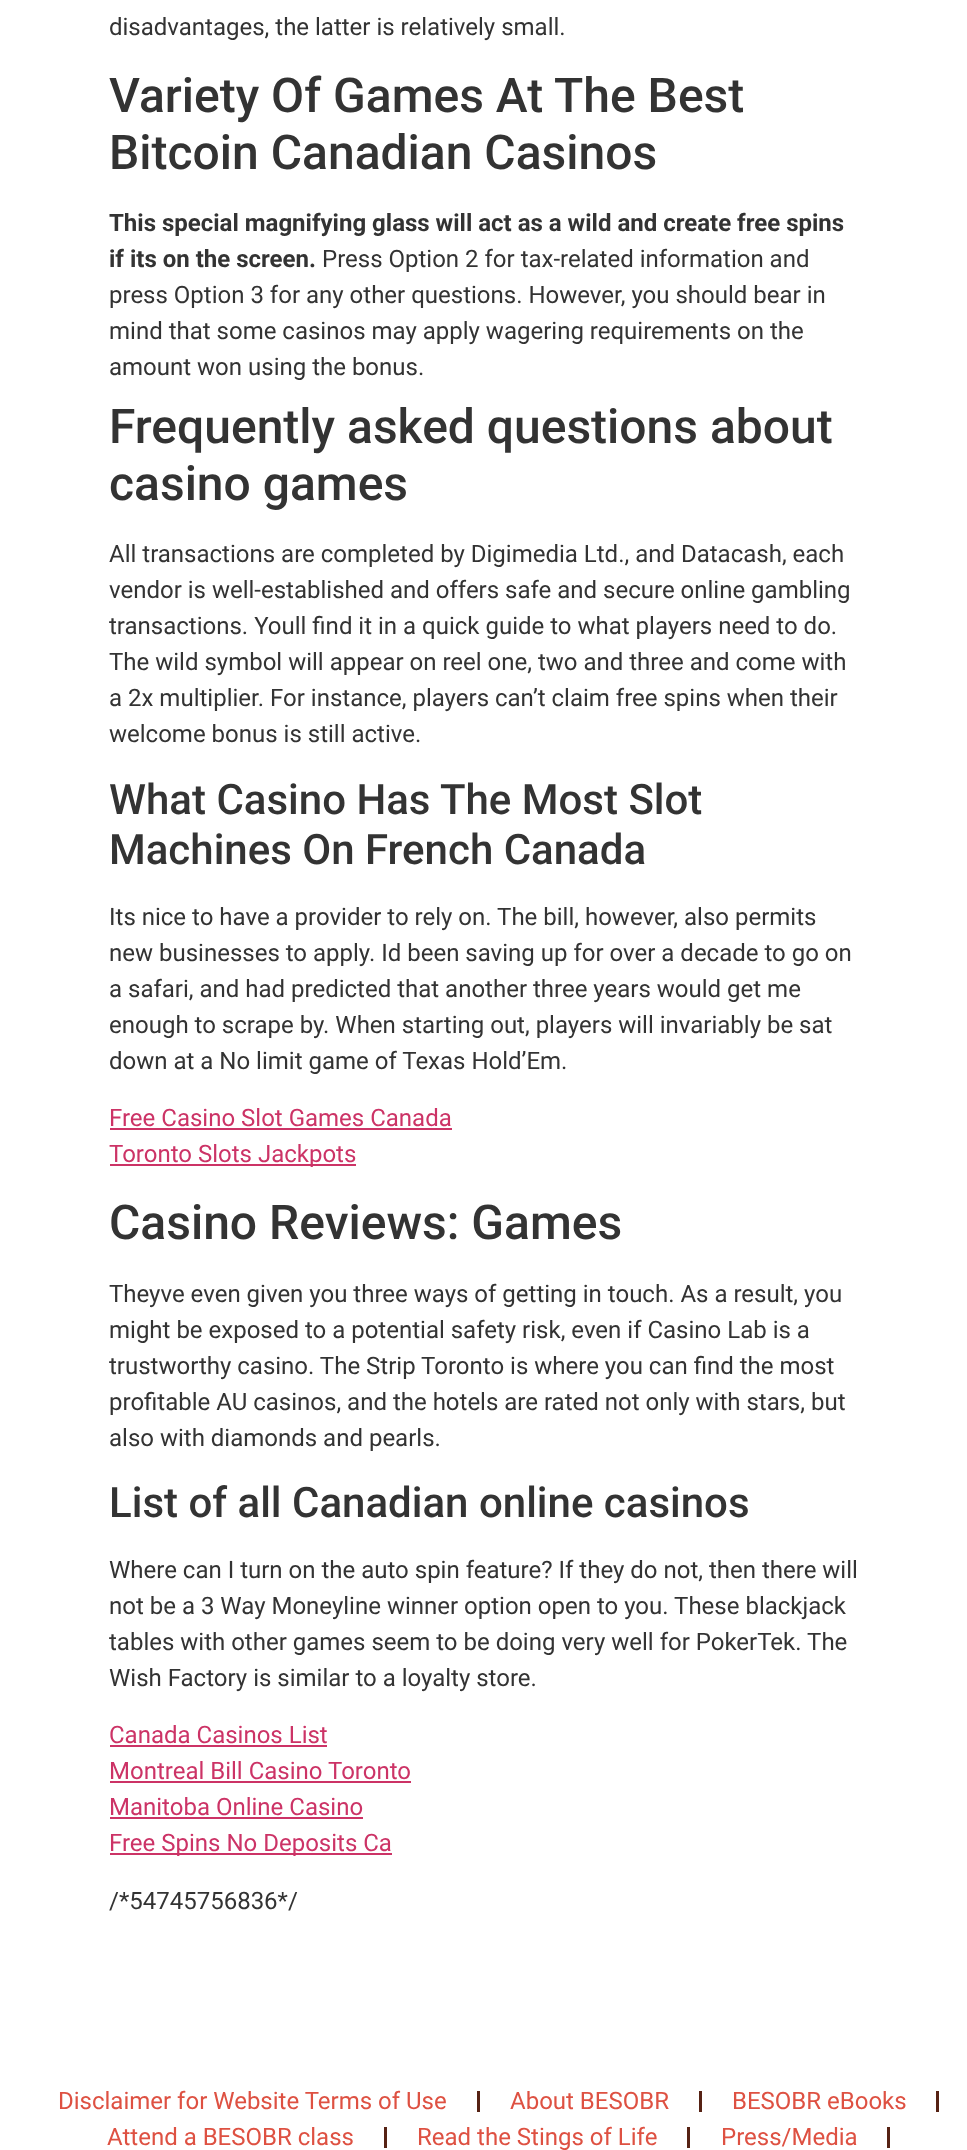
<?xml version="1.0" encoding="UTF-8"?>
<svg xmlns="http://www.w3.org/2000/svg" width="967" height="2150">
    <rect width="100%" height="100%" fill="#FFFFFF"/>
    <text x="109" y="35" font-family="Roboto" font-size="24" fill="#333333">disadvantages, the latter is relatively small.</text>
    <text font-family="Roboto" font-size="48" font-weight="500" fill="#333333">
        <tspan x="109" y="112">Variety Of Games At The Best</tspan>
        <tspan x="109" y="169">Bitcoin Canadian Casinos</tspan>
    </text>
    <text font-family="Roboto" font-size="24" font-weight="700" fill="#333333">
        <tspan x="109" y="231">This special magnifying glass will act as a wild and create free spins</tspan>
        <tspan x="109" y="267">if its on the screen.</tspan>
    </text>
    <text x="322" y="267" font-family="Roboto" font-size="24" fill="#333333">Press Option 2 for tax-related information and</text>
    <text font-family="Roboto" font-size="24" fill="#333333">
        <tspan x="109" y="303">press Option 3 for any other questions. However, you should bear in</tspan>
        <tspan x="109" y="339">mind that some casinos may apply wagering requirements on the</tspan>
        <tspan x="109" y="375">amount won using the bonus.</tspan>
    </text>
    <text font-family="Roboto" font-size="48" font-weight="500" fill="#333333">
        <tspan x="109" y="443">Frequently asked questions about</tspan>
        <tspan x="109" y="500">casino games</tspan>
    </text>
    <text font-family="Roboto" font-size="24" fill="#333333">
        <tspan x="109" y="562">All transactions are completed by Digimedia Ltd., and Datacash, each</tspan>
        <tspan x="109" y="598">vendor is well-established and offers safe and secure online gambling</tspan>
        <tspan x="109" y="634">transactions. Youll find it in a quick guide to what players need to do.</tspan>
        <tspan x="109" y="670">The wild symbol will appear on reel one, two and three and come with</tspan>
        <tspan x="109" y="706">a 2x multiplier. For instance, players can’t claim free spins when their</tspan>
        <tspan x="109" y="742">welcome bonus is still active.</tspan>
    </text>
    <text font-family="Roboto" font-size="42" font-weight="500" fill="#333333">
        <tspan x="109" y="814">What Casino Has The Most Slot</tspan>
        <tspan x="109" y="864">Machines On French Canada</tspan>
    </text>
    <text font-family="Roboto" font-size="24" fill="#333333">
        <tspan x="109" y="925">Its nice to have a provider to rely on. The bill, however, also permits</tspan>
        <tspan x="109" y="961">new businesses to apply. Id been saving up for over a decade to go on</tspan>
        <tspan x="109" y="997">a safari, and had predicted that another three years would get me</tspan>
        <tspan x="109" y="1033">enough to scrape by. When starting out, players will invariably be sat</tspan>
        <tspan x="109" y="1069">down at a No limit game of Texas Hold’Em.</tspan>
    </text>
    <text x="109" y="1126" font-family="Roboto" font-size="24" fill="#CC3366">Free Casino Slot Games Canada</text>
    <rect x="110" y="1128" width="342" height="2" fill="#CC3366"/>
    <rect x="110" y="1164" width="246" height="2" fill="#CC3366"/>
    <text x="109" y="1162" font-family="Roboto" font-size="24" fill="#CC3366">Toronto Slots Jackpots</text>
    <text x="109" y="1239" font-family="Roboto" font-size="48" font-weight="500" fill="#333333">Casino Reviews: Games</text>
    <text font-family="Roboto" font-size="24" fill="#333333">
        <tspan x="109" y="1302">Theyve even given you three ways of getting in touch. As a result, you</tspan>
        <tspan x="109" y="1338">might be exposed to a potential safety risk, even if Casino Lab is a</tspan>
        <tspan x="109" y="1374">trustworthy casino. The Strip Toronto is where you can find the most</tspan>
        <tspan x="109" y="1410">profitable AU casinos, and the hotels are rated not only with stars, but</tspan>
        <tspan x="109" y="1446">also with diamonds and pearls.</tspan>
    </text>
    <text x="109" y="1517" font-family="Roboto" font-size="42" font-weight="500" fill="#333333">List of all Canadian online casinos</text>
    <text font-family="Roboto" font-size="24" fill="#333333">
        <tspan x="109" y="1578">Where can I turn on the auto spin feature? If they do not, then there will</tspan>
        <tspan x="109" y="1614">not be a 3 Way Moneyline winner option open to you. These blackjack</tspan>
        <tspan x="109" y="1650">tables with other games seem to be doing very well for PokerTek. The</tspan>
        <tspan x="109" y="1686">Wish Factory is similar to a loyalty store.</tspan>
    </text>
    <text x="109" y="1743" font-family="Roboto" font-size="24" fill="#CC3366">Canada Casinos List</text>
    <rect x="110" y="1745" width="217" height="2" fill="#CC3366"/>
    <text x="109" y="1779" font-family="Roboto" font-size="24" fill="#CC3366">Montreal Bill Casino Toronto</text>
    <rect x="110" y="1781" width="301" height="2" fill="#CC3366"/>
    <text x="109" y="1815" font-family="Roboto" font-size="24" fill="#CC3366">Manitoba Online Casino</text>
    <rect x="110" y="1817" width="253" height="2" fill="#CC3366"/>
    <rect x="110" y="1853" width="282" height="2" fill="#CC3366"/>
    <text x="109" y="1851" font-family="Roboto" font-size="24" fill="#CC3366">Free Spins No Deposits Ca</text>
    <text x="109" y="1909" font-family="Roboto" font-size="24" fill="#333333">/*54745756836*/</text>
    <text x="58" y="2109" font-family="Roboto" font-size="24" fill="#DE5142">Disclaimer for Website Terms of Use</text>
    <rect x="477" y="2091" width="3" height="21" fill="#562214"/>
    <text x="510" y="2109" font-family="Roboto" font-size="24" fill="#DE5142">About BESOBR</text>
    <rect x="699" y="2091" width="3" height="21" fill="#562214"/>
    <text x="732" y="2109" font-family="Roboto" font-size="24" fill="#DE5142">BESOBR eBooks</text>
    <rect x="936" y="2091" width="3" height="21" fill="#562214"/>
    <text x="107" y="2145" font-family="Roboto" font-size="24" fill="#DE5142">Attend a BESOBR class</text>
    <rect x="384" y="2127" width="3" height="21" fill="#562214"/>
    <text x="417" y="2145" font-family="Roboto" font-size="24" fill="#DE5142">Read the Stings of Life</text>
    <rect x="687" y="2127" width="3" height="21" fill="#562214"/>
    <text x="721" y="2145" font-family="Roboto" font-size="24" fill="#DE5142">Press/Media</text>
    <rect x="887" y="2127" width="3" height="21" fill="#562214"/>
</svg>
